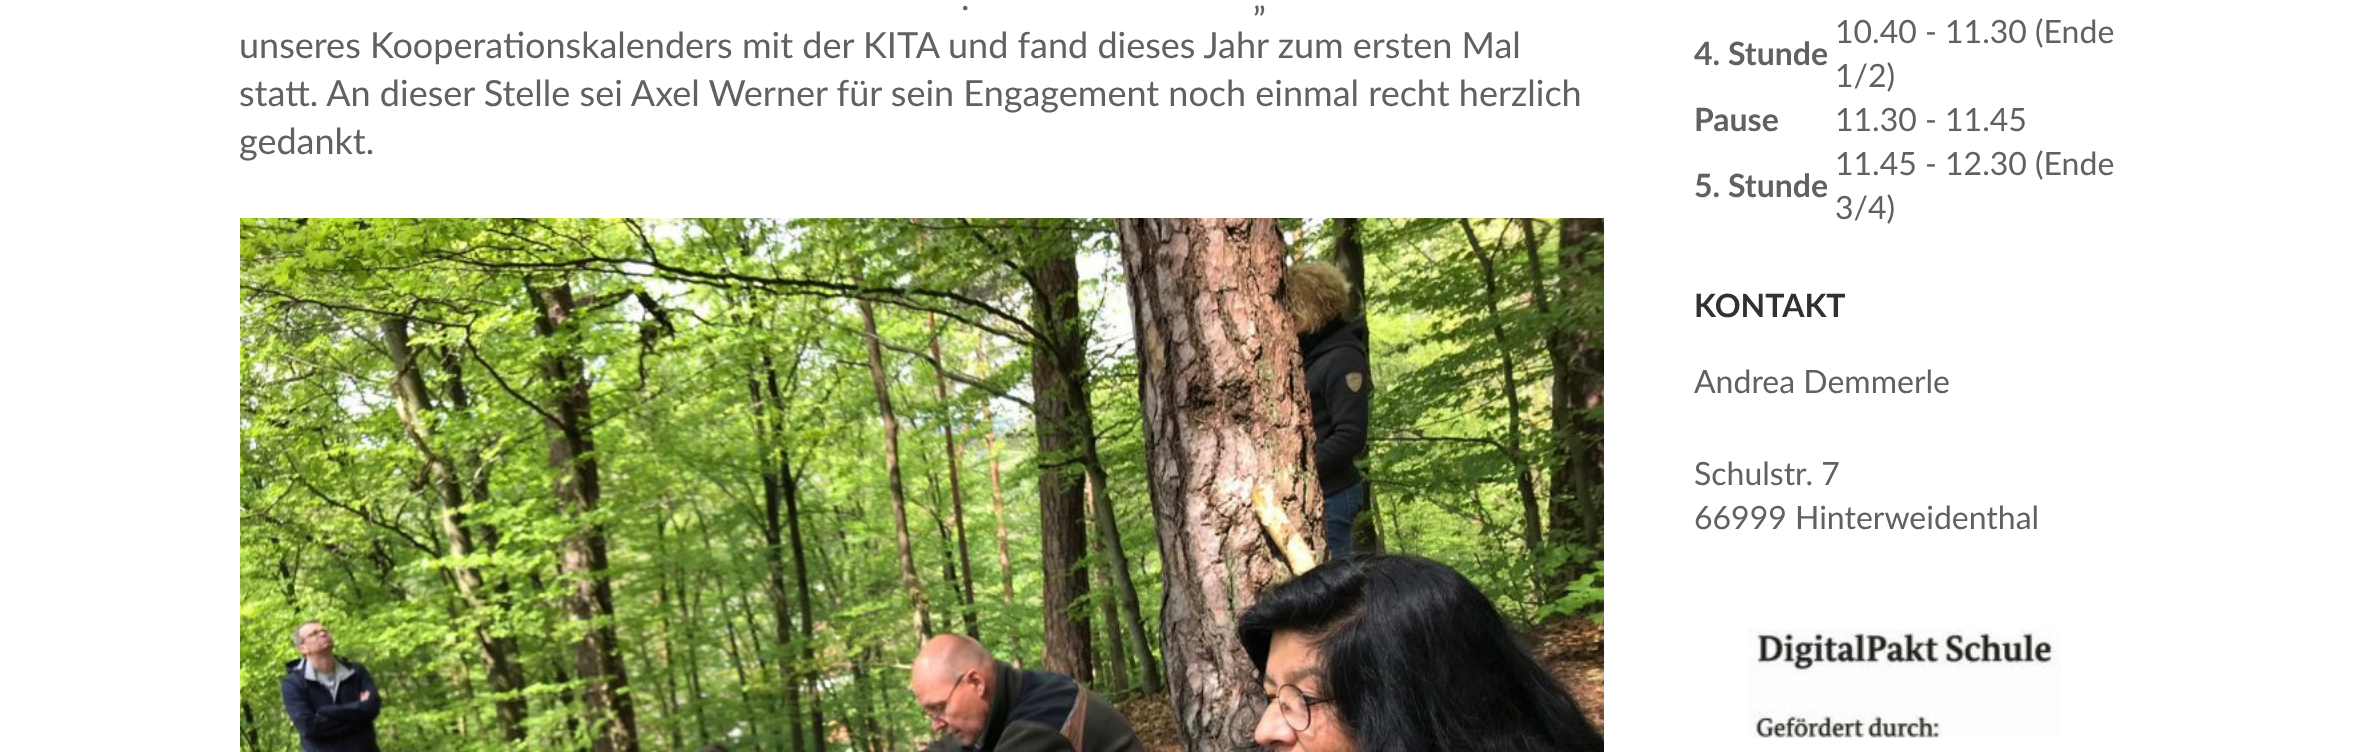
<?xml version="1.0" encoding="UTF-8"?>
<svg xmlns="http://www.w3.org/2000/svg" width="2358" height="752">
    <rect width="100%" height="100%" fill="#FFFFFF"/>
    <text x="961" y="10" font-family="Lato" font-size="36" fill="#616161">.</text>
    <text x="1253" y="10" font-family="Lato" font-size="36" fill="#616161">„</text>
    <text font-family="Lato" font-size="36" fill="#616161">
        <tspan x="239" y="58">unseres Kooperationskalenders mit der KITA und fand dieses Jahr zum ersten Mal</tspan>
        <tspan x="239" y="106">statt. An dieser Stelle sei Axel Werner für sein Engagement noch einmal recht herzlich</tspan>
        <tspan x="239" y="154">gedankt.</tspan>
    </text>
    <image x="240" y="218" width="1364" height="534" href="img_01.png"/>
    <text x="1694" y="65" font-family="Lato" font-size="32" font-weight="700" fill="#616161">4. Stunde</text>
    <text font-family="Lato" font-size="32" fill="#616161">
        <tspan x="1835" y="43">10.40 - 11.30 (Ende</tspan>
        <tspan x="1835" y="87">1/2)</tspan>
    </text>
    <text x="1694" y="131" font-family="Lato" font-size="32" font-weight="700" fill="#616161">Pause</text>
    <text x="1835" y="131" font-family="Lato" font-size="32" fill="#616161">11.30 - 11.45</text>
    <text x="1694" y="197" font-family="Lato" font-size="32" font-weight="700" fill="#616161">5. Stunde</text>
    <text font-family="Lato" font-size="32" fill="#616161">
        <tspan x="1835" y="175">11.45 - 12.30 (Ende</tspan>
        <tspan x="1835" y="219">3/4)</tspan>
    </text>
    <text x="1694" y="317" font-family="Lato" font-size="32" font-weight="700" fill="#313131">KONTAKT</text>
    <text x="1694" y="393" font-family="Lato" font-size="32" fill="#616161">Andrea Demmerle</text>
    <text font-family="Lato" font-size="32" fill="#616161">
        <tspan x="1694" y="485">Schulstr. 7</tspan>
        <tspan x="1694" y="529">66999 Hinterweidenthal</tspan>
    </text>
    <image x="1748" y="628" width="313" height="110" href="img_02.png"/>
</svg>
